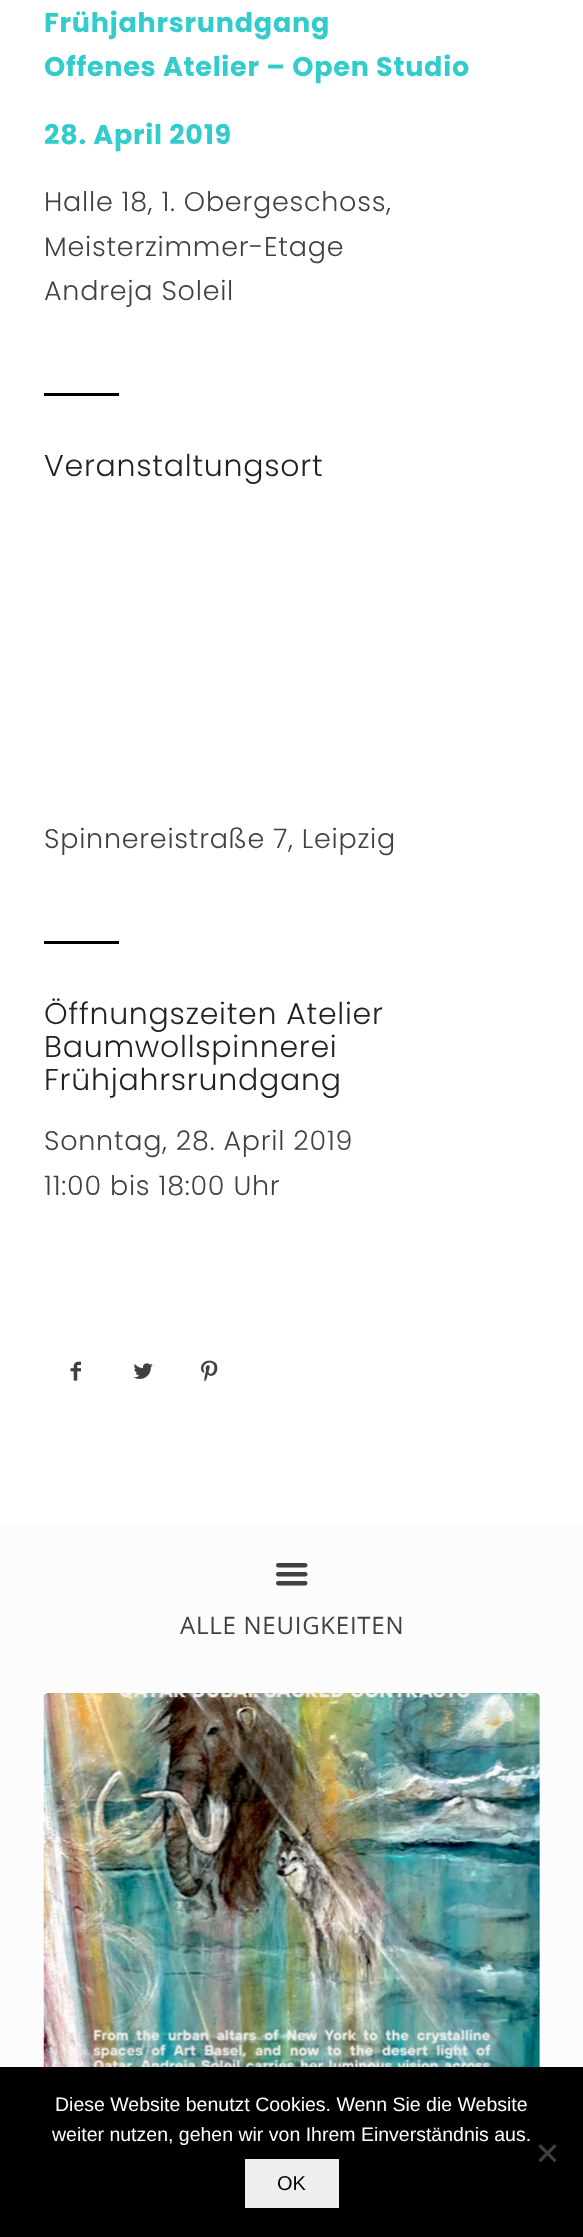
<?xml version="1.0" encoding="UTF-8"?>
<svg xmlns="http://www.w3.org/2000/svg" width="583" height="2237">
    <rect width="100%" height="100%" fill="#FFFFFF"/>
    <text font-family="Poppins" font-size="27" font-weight="700" letter-spacing="0.75" fill="#33CCCC">
        <tspan x="44" y="32">Frühjahrsrundgang</tspan>
        <tspan x="44" y="76">Offenes Atelier – Open Studio</tspan>
    </text>
    <text x="44" y="144" font-family="Poppins" font-size="27" font-weight="700" letter-spacing="0.75" fill="#33CCCC">28. April 2019</text>
    <text font-family="Poppins" font-size="27" font-weight="300" letter-spacing="0.75" fill="#414145">
        <tspan x="44" y="211">Halle 18, 1. Obergeschoss,</tspan>
        <tspan x="44" y="256">Meisterzimmer-Etage</tspan>
        <tspan x="44" y="300">Andreja Soleil</tspan>
    </text>
    <rect x="44" y="393" width="75" height="3" fill="#000000"/>
    <text x="44" y="476" font-family="Poppins" font-size="30" font-weight="300" letter-spacing="0.75" fill="#222222">Veranstaltungsort</text>
    <text x="44" y="848" font-family="Poppins" font-size="27" font-weight="300" letter-spacing="0.75" fill="#414145">Spinnereistraße 7, Leipzig</text>
    <rect x="44" y="941" width="75" height="3" fill="#000000"/>
    <text font-family="Poppins" font-size="30" font-weight="300" letter-spacing="0.75" fill="#222222">
        <tspan x="44" y="1024">Öffnungszeiten Atelier</tspan>
        <tspan x="44" y="1057">Baumwollspinnerei</tspan>
        <tspan x="44" y="1090">Frühjahrsrundgang</tspan>
    </text>
    <text font-family="Poppins" font-size="27" font-weight="300" letter-spacing="0.75" fill="#414145">
        <tspan x="44" y="1150">Sonntag, 28. April 2019</tspan>
        <tspan x="44" y="1195">11:00 bis 18:00 Uhr</tspan>
    </text>
    <image x="70" y="1361" width="11" height="20" href="img_01.png"/>
    <image x="133" y="1363" width="20" height="16" href="img_02.png"/>
    <image x="201" y="1360" width="17" height="22" href="img_03.png"/>
    <rect x="0" y="1523" width="583" height="544" fill="#FCFCFC"/>
    <image x="276" y="1563" width="32" height="23" href="img_04.png"/>
    <text x="180" y="1634" font-family="Open Sans" font-size="24" letter-spacing="0.75" fill="#414145">ALLE NEUIGKEITEN</text>
    <image x="43" y="1693" width="497" height="374" href="img_05.png"/>
    <rect x="0" y="2067" width="583" height="170" fill="#000000"/>
    <text x="55" y="2111" font-family="Liberation Sans" font-size="19.5" fill="#FFFFFF">Diese Website benutzt Cookies. Wenn Sie die Website</text>
    <text x="52" y="2141" font-family="Liberation Sans" font-size="19.5" fill="#FFFFFF">weiter nutzen, gehen wir von Ihrem Einverständnis aus.</text>
    <path d="M 554.5 2144 L 556.5 2146.5 L 540.5 2162.5 L 538.5 2160 Z" fill="#404040"/>
    <path d="M 538.5 2146.5 L 540.5 2144 L 556.5 2160 L 554.5 2162.5 Z" fill="#404040"/>
    <rect x="245" y="2159" width="94" height="49" fill="#EFEFEF"/>
    <text x="277" y="2190" font-family="Liberation Sans" font-size="20" fill="#000000">OK</text>
</svg>
